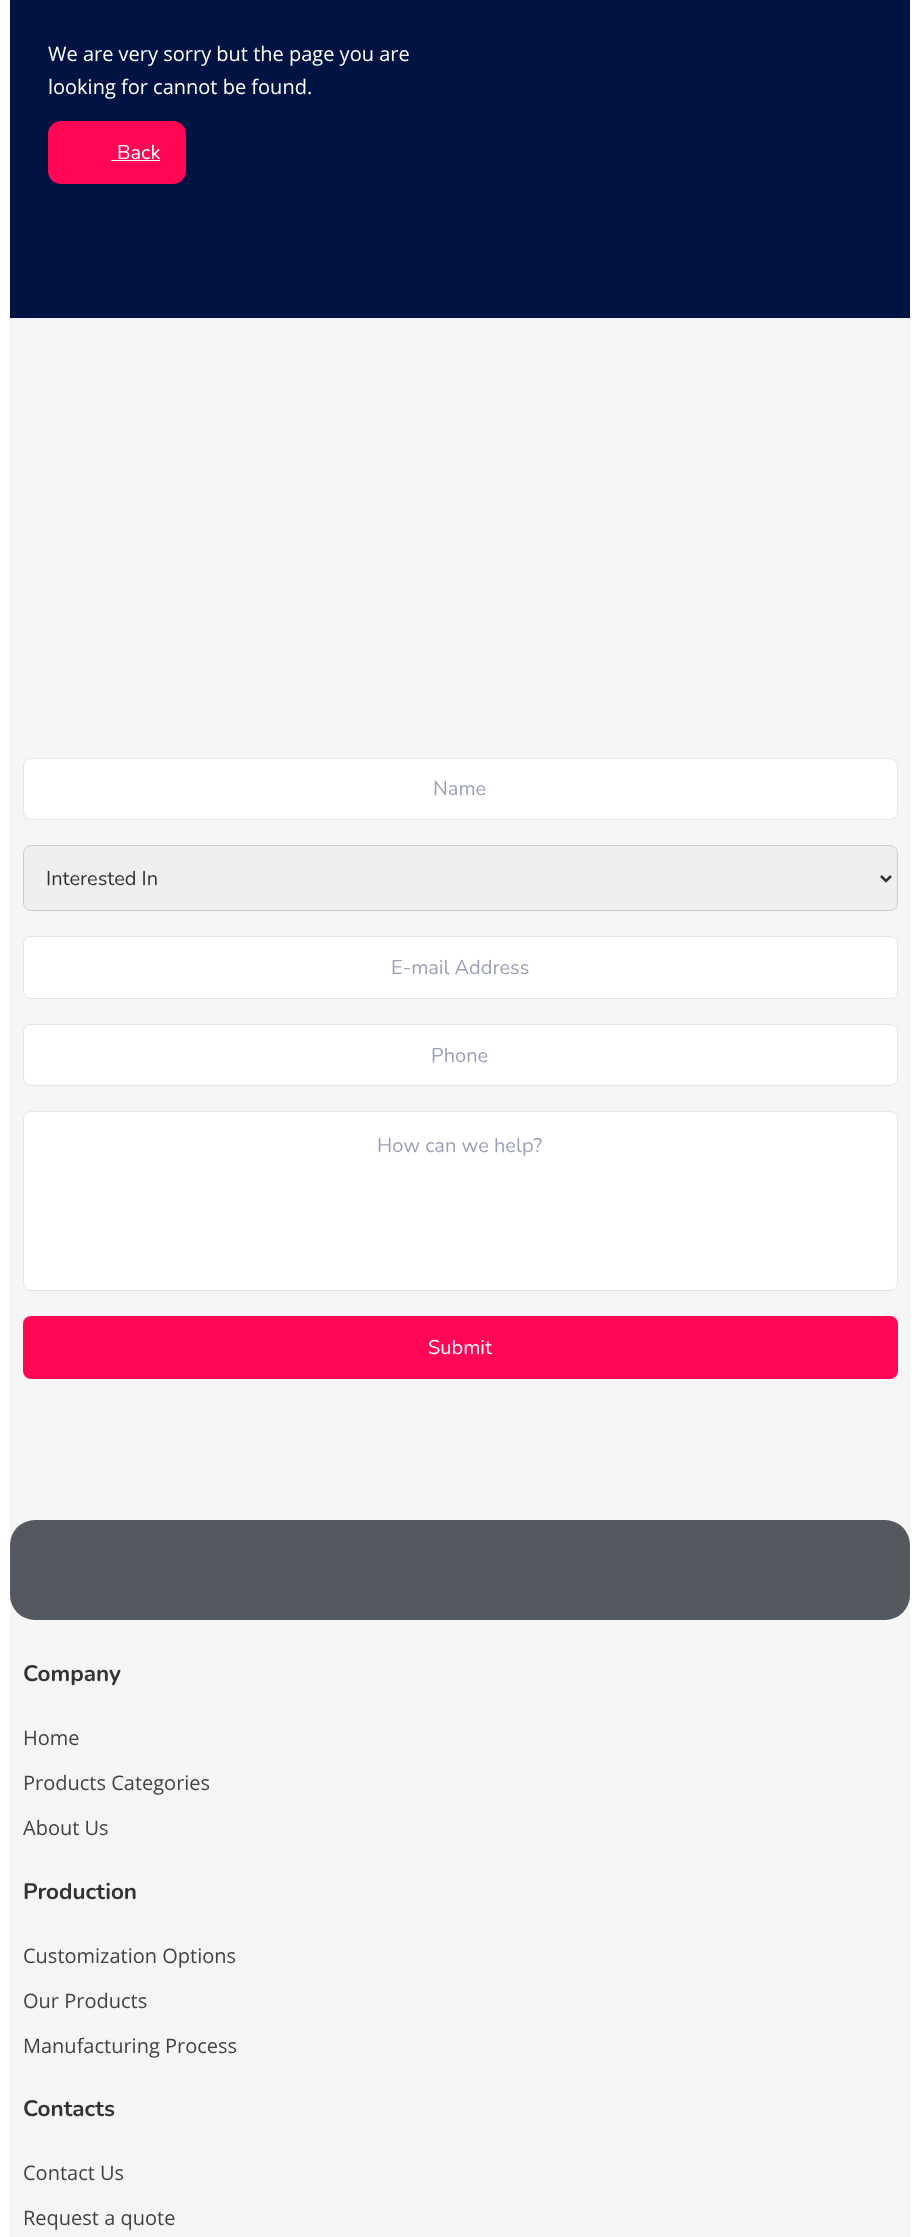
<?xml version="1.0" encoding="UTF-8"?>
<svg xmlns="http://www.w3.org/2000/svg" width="919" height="2237">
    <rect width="100%" height="100%" fill="#FFFFFF"/>
    <rect x="10" y="319" width="900" height="1918" fill="#F5F5F5"/>
    <rect x="10" y="0" width="900" height="318" fill="#001443"/>
    <rect x="10" y="318" width="900" height="1" fill="#F2F2F2"/>
    <text font-family="Open Sans" font-size="20" fill="#FFFFFF">
        <tspan x="48" y="61">We are very sorry but the page you are</tspan>
        <tspan x="48" y="94">looking for cannot be found.</tspan>
    </text>
    <rect x="48" y="121" width="138" height="63" rx="13" fill="#FF0754"/>
    <text x="117" y="159" font-family="Nunito" font-size="20" fill="#FFFFFF">Back</text>
    <rect x="111" y="160" width="49" height="1" fill="#FFFFFF"/>
    <rect x="23.5" y="758.5" width="874" height="61" rx="7.5" fill="#FFFFFF" stroke="#E5E5E5"/>
    <text x="433" y="795" font-family="Nunito" font-size="20" fill="#9DA1B6">Name</text>
    <rect x="23.5" y="845.5" width="874" height="65" rx="7.5" fill="#EFEFEF" stroke="#CCCCCC"/>
    <path d="M 881 876 L 886 881 L 891 876" fill="none" stroke="#333333" stroke-width="2.5"/>
    <text x="46" y="885" font-family="Nunito" font-size="20" fill="#333333">Interested In</text>
    <rect x="23.5" y="936.5" width="874" height="62" rx="7.5" fill="#FFFFFF" stroke="#E5E5E5"/>
    <text x="391" y="974" font-family="Nunito" font-size="20" fill="#9DA1B6">E-mail Address</text>
    <rect x="23.5" y="1024.5" width="874" height="61" rx="7.5" fill="#FFFFFF" stroke="#E5E5E5"/>
    <text x="431" y="1062" font-family="Nunito" font-size="20" fill="#9DA1B6">Phone</text>
    <rect x="23.5" y="1111.5" width="874" height="179" rx="7.5" fill="#FFFFFF" stroke="#E5E5E5"/>
    <text x="377" y="1152" font-family="Nunito" font-size="20" fill="#9DA1B6">How can we help?</text>
    <rect x="23" y="1316" width="875" height="63" rx="8" fill="#FF0754"/>
    <text x="428" y="1354" font-family="Nunito" font-size="20" fill="#FFFFFF">Submit</text>
    <rect x="10" y="1520" width="900" height="100" rx="25" fill="#54595F"/>
    <text x="23" y="1681" font-family="Nunito" font-size="22.5" font-weight="700" fill="#333333">Company</text>
    <text x="23" y="1745" font-family="Open Sans" font-size="20" fill="#424242">Home</text>
    <text x="23" y="1790" font-family="Open Sans" font-size="20" fill="#424242">Products Categories</text>
    <text x="23" y="1835" font-family="Open Sans" font-size="20" fill="#424242">About Us</text>
    <text x="23" y="1899" font-family="Nunito" font-size="22.5" font-weight="700" fill="#333333">Production</text>
    <text x="23" y="1963" font-family="Open Sans" font-size="20" fill="#424242">Customization Options</text>
    <text x="23" y="2008" font-family="Open Sans" font-size="20" fill="#424242">Our Products</text>
    <text x="23" y="2053" font-family="Open Sans" font-size="20" fill="#424242">Manufacturing Process</text>
    <text x="23" y="2116" font-family="Nunito" font-size="22.5" font-weight="700" fill="#333333">Contacts</text>
    <text x="23" y="2180" font-family="Open Sans" font-size="20" fill="#424242">Contact Us</text>
    <text x="23" y="2225" font-family="Open Sans" font-size="20" fill="#424242">Request a quote</text>
</svg>
